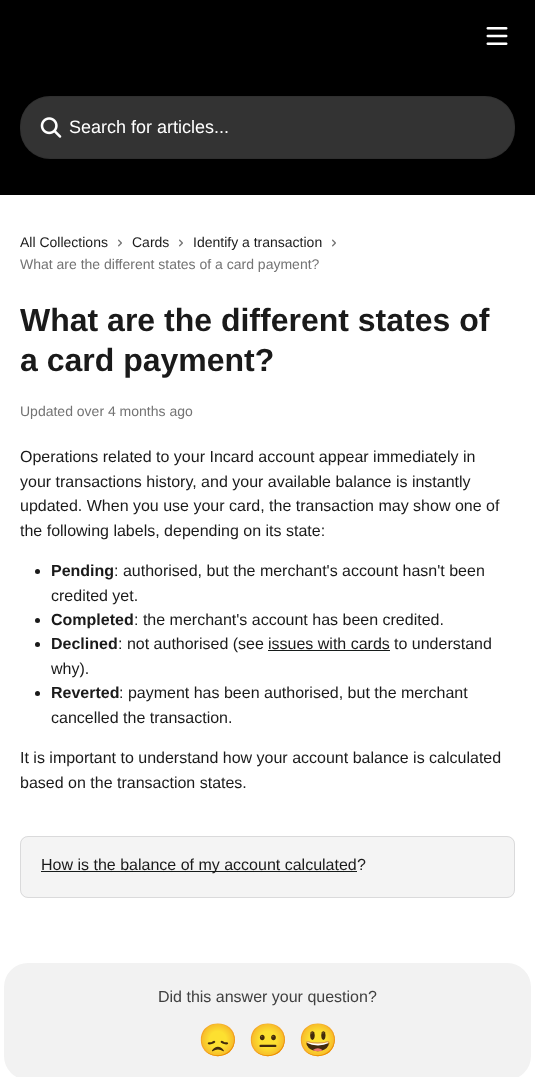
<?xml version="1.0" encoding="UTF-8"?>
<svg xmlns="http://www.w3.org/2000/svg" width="535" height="1077">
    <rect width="100%" height="100%" fill="#FFFFFF"/>
    <rect x="0" y="0" width="535" height="195" fill="#000000"/>
    <image x="486" y="27" width="22" height="18" href="img_01.png"/>
    <rect x="20" y="96" width="495" height="63" rx="30" fill="#333333"/>
    <rect x="20.5" y="96.5" width="494" height="62" rx="29.5" fill="none" stroke="#000000" stroke-opacity="0.08"/>
    <image x="40" y="117" width="22" height="21" href="img_02.png"/>
    <text x="69" y="133" font-family="Liberation Sans" font-size="18" fill="#FFFFFF">Search for articles...</text>
    <text x="20" y="247" font-family="Liberation Sans" font-size="14" fill="#1A1A1A">All Collections</text>
    <image x="118" y="239" width="4" height="8" href="img_03.png"/>
    <text x="132" y="247" font-family="Liberation Sans" font-size="14" fill="#1A1A1A">Cards</text>
    <image x="179" y="239" width="4" height="8" href="img_03.png"/>
    <text x="193" y="247" font-family="Liberation Sans" font-size="14" fill="#1A1A1A">Identify a transaction</text>
    <image x="332" y="239" width="4" height="8" href="img_03.png"/>
    <text x="20" y="269" font-family="Liberation Sans" font-size="14" fill="#737373">What are the different states of a card payment?</text>
    <text font-family="Liberation Sans" font-size="32" font-weight="700" fill="#1A1A1A">
        <tspan x="20" y="331">What are the different states of</tspan>
        <tspan x="20" y="371">a card payment?</tspan>
    </text>
    <text x="20" y="416" font-family="Liberation Sans" font-size="14" fill="#737373">Updated over 4 months ago</text>
    <text font-family="Liberation Sans" font-size="16" fill="#1A1A1A">
        <tspan x="20" y="462">Operations related to your Incard account appear immediately in</tspan>
        <tspan x="20" y="487">your transactions history, and your available balance is instantly</tspan>
        <tspan x="20" y="511">updated. When you use your card, the transaction may show one of</tspan>
        <tspan x="20" y="536">the following labels, depending on its state:</tspan>
    </text>
    <circle cx="37.5" cy="571.5" r="2.5" fill="#1A1A1A"/>
    <text x="51" y="576" font-family="Liberation Sans" font-size="16" font-weight="700" fill="#1A1A1A">Pending</text>
    <text x="114" y="576" font-family="Liberation Sans" font-size="16" fill="#1A1A1A">: authorised, but the merchant's account hasn't been</text>
    <text x="51" y="601" font-family="Liberation Sans" font-size="16" fill="#1A1A1A">credited yet.</text>
    <circle cx="37.5" cy="620.5" r="2.5" fill="#1A1A1A"/>
    <text x="51" y="625" font-family="Liberation Sans" font-size="16" font-weight="700" fill="#1A1A1A">Completed</text>
    <text x="134" y="625" font-family="Liberation Sans" font-size="16" fill="#1A1A1A">: the merchant's account has been credited.</text>
    <circle cx="37.5" cy="644.5" r="2.5" fill="#1A1A1A"/>
    <text x="51" y="649" font-family="Liberation Sans" font-size="16" font-weight="700" fill="#1A1A1A">Declined</text>
    <text x="118" y="649" font-family="Liberation Sans" font-size="16" fill="#1A1A1A">: not authorised (see</text>
    <text x="268" y="649" font-family="Liberation Sans" font-size="16" fill="#1A1A1A">issues with cards</text>
    <rect x="268" y="650" width="122" height="1" fill="#171C1B"/>
    <text x="394" y="649" font-family="Liberation Sans" font-size="16" fill="#1A1A1A">to understand</text>
    <text x="51" y="674" font-family="Liberation Sans" font-size="16" fill="#1A1A1A">why).</text>
    <circle cx="37.5" cy="693.5" r="2.5" fill="#1A1A1A"/>
    <text x="51" y="698" font-family="Liberation Sans" font-size="16" font-weight="700" fill="#1A1A1A">Reverted</text>
    <text x="119" y="698" font-family="Liberation Sans" font-size="16" fill="#1A1A1A">: payment has been authorised, but the merchant</text>
    <text x="51" y="723" font-family="Liberation Sans" font-size="16" fill="#1A1A1A">cancelled the transaction.</text>
    <text font-family="Liberation Sans" font-size="16" fill="#1A1A1A">
        <tspan x="20" y="763">It is important to understand how your account balance is calculated</tspan>
        <tspan x="20" y="788">based on the transaction states.</tspan>
    </text>
    <rect x="20" y="836" width="495" height="62" rx="8" fill="#F4F4F4"/>
    <rect x="20.5" y="836.5" width="494" height="61" rx="7.5" fill="none" stroke="#737376" stroke-opacity="0.2"/>
    <rect x="41" y="871" width="316" height="1" fill="#171C1B"/>
    <text x="41" y="870" font-family="Liberation Sans" font-size="16" fill="#1A1A1A">How is the balance of my account calculated</text>
    <text x="357" y="870" font-family="Liberation Sans" font-size="16" fill="#1A1A1A">?</text>
    <rect x="4" y="963" width="527" height="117" rx="24" fill="#F2F2F2"/>
    <text x="158" y="1002" font-family="Liberation Sans" font-size="16" fill="#404040">Did this answer your question?</text>
    <text x="198" y="1051" font-family="Noto Color Emoji" font-size="32" fill="#404040">😞</text>
    <text x="248" y="1051" font-family="Noto Color Emoji" font-size="32" fill="#404040">😐</text>
    <text x="298" y="1051" font-family="Noto Color Emoji" font-size="32" fill="#404040">😃</text>
</svg>
